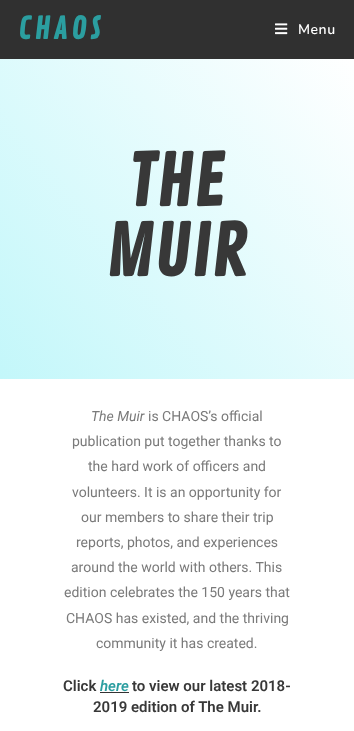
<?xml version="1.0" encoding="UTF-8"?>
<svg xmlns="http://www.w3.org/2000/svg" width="354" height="731">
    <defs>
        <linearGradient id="g1" gradientUnits="userSpaceOnUse" x1="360" y1="66" x2="-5.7" y2="372"><stop offset="0" stop-color="#FFFFFF"/><stop offset="1" stop-color="#C3F7FA"/></linearGradient>
    </defs>
    <rect width="100%" height="100%" fill="#FFFFFF"/>
    <rect x="0" y="0" width="354" height="59" fill="#303030"/>
    <text x="18" y="39" font-family="Contrail One" font-size="30" font-weight="700" letter-spacing="3.5" fill="#2B9EA0">CHAOS</text>
    <image x="275" y="23" width="13" height="12" href="img_01.png"/>
    <text x="298" y="34" font-family="Nunito" font-size="14" font-weight="600" letter-spacing="0.5" fill="#FFFFFF">Menu</text>
    <rect x="0" y="59" width="354" height="320" fill="url(#g1)"/>
    <text x="128" y="206" font-family="Contrail One" font-size="70" font-weight="700" letter-spacing="1" fill="#383838">THE</text>
    <text x="106" y="276" font-family="Contrail One" font-size="70" font-weight="700" letter-spacing="1" fill="#383838">MUIR</text>
    <text x="91" y="421" font-family="Roboto" font-size="14" font-style="italic" fill="#7A7A7A">The Muir</text>
    <text x="148" y="421" font-family="Roboto" font-size="14" fill="#7A7A7A">is CHAOS’s official</text>
    <text x="72" y="446" font-family="Roboto" font-size="14" fill="#7A7A7A">publication put together thanks to</text>
    <text x="88" y="471" font-family="Roboto" font-size="14" fill="#7A7A7A">the hard work of officers and</text>
    <text x="72" y="497" font-family="Roboto" font-size="14" fill="#7A7A7A">volunteers. It is an opportunity for</text>
    <text x="81" y="522" font-family="Roboto" font-size="14" fill="#7A7A7A">our members to share their trip</text>
    <text x="76" y="547" font-family="Roboto" font-size="14" fill="#7A7A7A">reports, photos, and experiences</text>
    <text x="71" y="572" font-family="Roboto" font-size="14" fill="#7A7A7A">around the world with others. This</text>
    <text x="64" y="597" font-family="Roboto" font-size="14" fill="#7A7A7A">edition celebrates the 150 years that</text>
    <text x="66" y="623" font-family="Roboto" font-size="14" fill="#7A7A7A">CHAOS has existed, and the thriving</text>
    <text x="96" y="648" font-family="Roboto" font-size="14" fill="#7A7A7A">community it has created.</text>
    <text x="63" y="691" font-family="Roboto" font-size="15" font-weight="600" fill="#383838">Click</text>
    <text x="100" y="691" font-family="Roboto" font-size="15" font-weight="600" font-style="italic" fill="#2B9EA0">here</text>
    <rect x="100" y="692" width="29" height="1" fill="#333333"/>
    <text x="132" y="691" font-family="Roboto" font-size="15" font-weight="600" fill="#383838">to view our latest 2018-</text>
    <text x="93" y="712" font-family="Roboto" font-size="15" font-weight="600" fill="#383838">2019 edition of The Muir.</text>
</svg>
